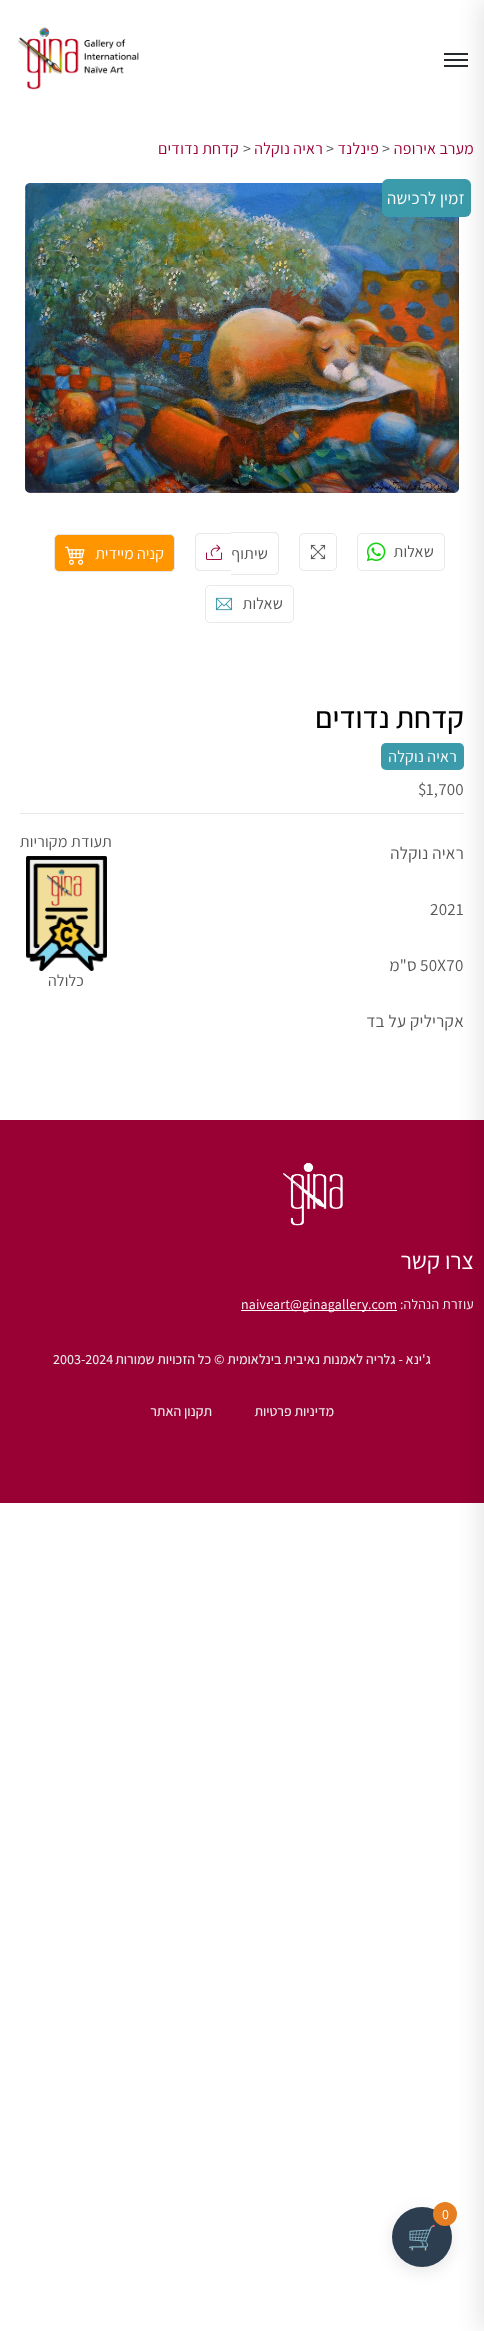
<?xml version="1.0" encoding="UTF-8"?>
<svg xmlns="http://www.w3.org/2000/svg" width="484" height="2331">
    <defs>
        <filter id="blur1" x="-50%" y="-200%" width="200%" height="500%"><feGaussianBlur stdDeviation="8"/></filter>
        <filter id="blur2" x="-50%" y="-200%" width="200%" height="500%"><feGaussianBlur stdDeviation="12.5"/></filter>
    </defs>
    <rect width="100%" height="100%" fill="#FFFFFF"/>
    <rect x="444" y="53" width="24" height="2" fill="#25282E"/>
    <rect x="444" y="59" width="24" height="2" fill="#25282E"/>
    <rect x="444" y="65" width="24" height="2" fill="#25282E"/>
    <image x="25" y="183" width="434" height="310" href="img_02.png"/>
    <rect x="382" y="179" width="89" height="38" rx="6" fill="#3B9BAA"/>
    <rect x="357.5" y="533.5" width="87" height="37" rx="4.5" fill="none" stroke="#E8E8E8"/>
    <rect x="381" y="743" width="83" height="27" rx="5" fill="#3B9BAA"/>
    <rect x="20" y="813" width="444" height="1" fill="#E8E8E8"/>
    <rect x="0" y="1120" width="484" height="383" fill="#990033"/>
    <rect x="392" y="2211" width="60" height="60" rx="30" fill="#000000" fill-opacity="0.1" filter="url(#blur1)"/>
    <circle cx="422" cy="2237" r="30" fill="#2C3E50"/>
    <text x="407" y="2246" font-family="Noto Color Emoji" font-size="24" fill="#FFFFFF">🛒</text>
    <circle cx="445" cy="2214" r="12" fill="#E67E22"/>
    <rect x="480" y="0" width="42" height="2331" fill="#000000" fill-opacity="0.1" filter="url(#blur2)"/>
    <image x="17" y="27" width="122" height="63" href="img_01.png"/>
    <text x="474" y="154" font-family="Assistant" font-size="16" letter-spacing="0.2" direction="rtl" fill="#990033">מערב אירופה</text>
    <text x="382" y="154" font-family="Assistant" font-size="16" letter-spacing="0.2" fill="#555555">&gt;</text>
    <text x="379" y="154" font-family="Assistant" font-size="16" letter-spacing="0.2" direction="rtl" fill="#990033">פינלנד</text>
    <text x="326" y="154" font-family="Assistant" font-size="16" letter-spacing="0.2" fill="#555555">&gt;</text>
    <text x="323" y="154" font-family="Assistant" font-size="16" letter-spacing="0.2" direction="rtl" fill="#990033">ראיה נוקלה</text>
    <text x="243" y="154" font-family="Assistant" font-size="16" letter-spacing="0.2" fill="#555555">&gt;</text>
    <text x="239" y="154" font-family="Assistant" font-size="16" letter-spacing="0.2" direction="rtl" fill="#990033">קדחת נדודים</text>
    <text x="465" y="204" font-family="Assistant" font-size="17" letter-spacing="0.25" direction="rtl" fill="#FFFFFF">זמין לרכישה</text>
    <text x="434" y="557" font-family="Assistant" font-size="16" letter-spacing="0.2" direction="rtl" fill="#555555">שאלות</text>
    <image x="366" y="542" width="20" height="20" href="img_03.png"/>
    <rect x="299.5" y="533.5" width="37" height="37" rx="4.5" fill="none" stroke="#E8E8E8"/>
    <image x="310" y="544" width="16" height="16" href="img_04.png"/>
    <path d="M 231 532 H 274 C 277 532 279 534 279 537 V 570 C 279 573 277 575 274 575 H 231 Z M 231 533 H 274 C 276 533 278 535 278 537 V 570 C 278 572 276 574 274 574 H 231 Z" fill="#E8E8E8" fill-rule="evenodd"/>
    <text x="268" y="559" font-family="Assistant" font-size="16" letter-spacing="0.2" direction="rtl" fill="#555555">שיתוף</text>
    <path d="M 200 533 H 223 V 571 H 200 C 197 571 195 569 195 566 V 538 C 195 535 197 533 200 533 Z M 200 534 H 223 V 570 H 200 C 198 570 196 568 196 566 V 538 C 196 536 198 534 200 534 Z" fill="#E8E8E8" fill-rule="evenodd"/>
    <rect x="223" y="533" width="8" height="1" fill="#E8E8E8"/>
    <rect x="223" y="570" width="8" height="1" fill="#E8E8E8"/>
    <image x="206" y="544" width="17" height="16" href="img_05.png"/>
    <rect x="54.5" y="534.5" width="120" height="37" rx="4.5" fill="#FF9500" stroke="#E8E8E8"/>
    <text x="164" y="559" font-family="Assistant" font-size="16" direction="rtl" fill="#FFFFFF">קניה מיידית</text>
    <image x="65" y="546" width="20" height="19" href="img_06.png"/>
    <rect x="205.5" y="585.5" width="88" height="37" rx="4.5" fill="none" stroke="#E8E8E8"/>
    <text x="283" y="609" font-family="Assistant" font-size="16" letter-spacing="0.2" direction="rtl" fill="#555555">שאלות</text>
    <image x="216" y="597" width="16" height="14" href="img_07.png"/>
    <text x="464" y="728" font-family="Assistant" font-size="30" font-weight="500" direction="rtl" fill="#000000">קדחת נדודים</text>
    <text x="457" y="762" font-family="Assistant" font-size="16" letter-spacing="0.2" direction="rtl" fill="#FFFFFF">ראיה נוקלה</text>
    <text x="426" y="795" font-family="Assistant" font-size="17" letter-spacing="0.2" fill="#555555">1,700</text>
    <text x="418" y="795" font-family="Assistant" font-size="17" letter-spacing="0.2" fill="#555555">$</text>
    <text x="112" y="847" font-family="Assistant" font-size="16" letter-spacing="0.2" direction="rtl" fill="#555555">תעודת מקוריות</text>
    <image x="26" y="856" width="81" height="115" href="img_08.png"/>
    <text x="84" y="986" font-family="Assistant" font-size="16" letter-spacing="0.2" direction="rtl" fill="#555555">כלולה</text>
    <text x="464" y="859" font-family="Assistant" font-size="17" letter-spacing="0.3" direction="rtl" fill="#555555">ראיה נוקלה</text>
    <text x="430" y="915" font-family="Assistant" font-size="17" letter-spacing="0.3" fill="#555555">2021</text>
    <text x="420" y="971" font-family="Assistant" font-size="17" letter-spacing="0.3" fill="#555555">50X70</text>
    <text x="417" y="971" font-family="Assistant" font-size="17" letter-spacing="0.3" direction="rtl" fill="#555555">ס"מ</text>
    <text x="464" y="1027" font-family="Assistant" font-size="17" letter-spacing="0.3" direction="rtl" fill="#555555">אקריליק על בד</text>
    <image x="283" y="1162" width="60" height="64" href="img_09.png"/>
    <text x="474" y="1269" font-family="Assistant" font-size="24" direction="rtl" fill="#FFFFFF">צרו קשר</text>
    <text x="474" y="1309" font-family="Assistant" font-size="14" letter-spacing="0.2" direction="rtl" fill="#EEEEEE">עוזרת הנהלה:</text>
    <rect x="241" y="1310" width="156" height="1" fill="#FFFFFF"/>
    <text x="241" y="1309" font-family="Assistant" font-size="14" letter-spacing="0.2" fill="#FFFFFF">naiveart@ginagallery.com</text>
    <text x="431" y="1364" font-family="Assistant" font-size="14" font-weight="500" direction="rtl" fill="#E8ECED">ג'ינא - גלריה לאמנות נאיבית בינלאומית © כל הזכויות שמורות</text>
    <text x="53" y="1364" font-family="Assistant" font-size="14" font-weight="500" fill="#E8ECED">2003-2024</text>
    <text x="334" y="1416" font-family="Assistant" font-size="14" font-weight="500" direction="rtl" fill="#E8ECED">מדיניות פרטיות</text>
    <text x="212" y="1416" font-family="Assistant" font-size="14" font-weight="500" direction="rtl" fill="#E8ECED">תקנון האתר</text>
    <text x="442" y="2219" font-family="Assistant" font-size="14" fill="#FFFFFF">0</text>
</svg>
